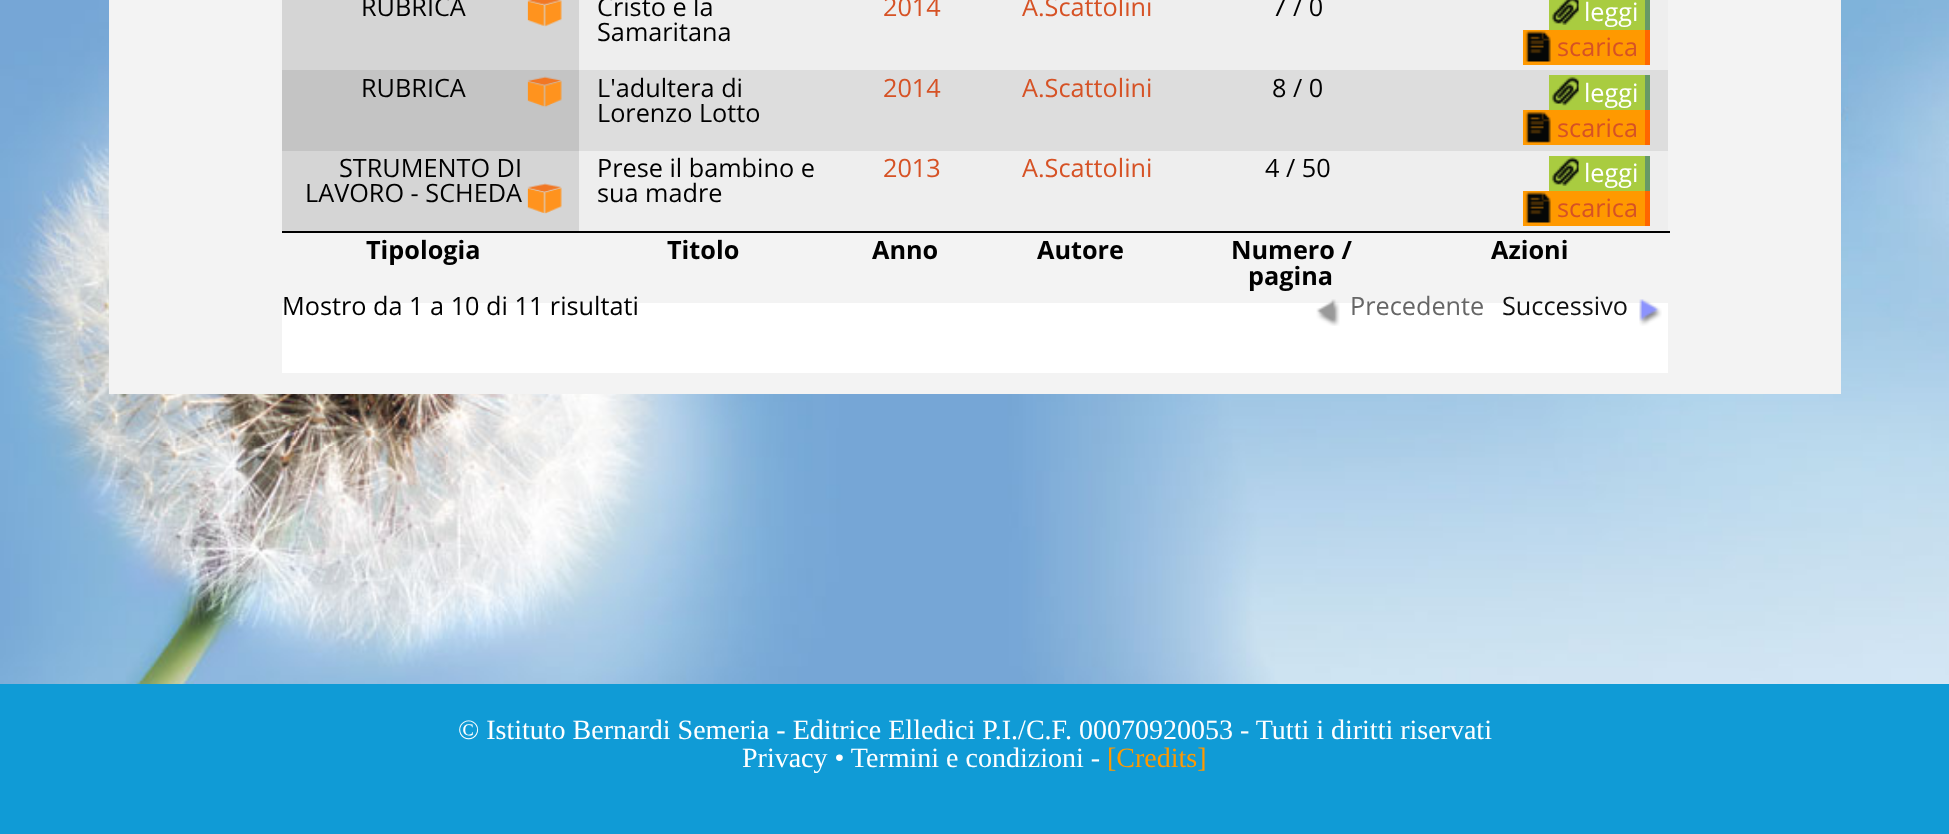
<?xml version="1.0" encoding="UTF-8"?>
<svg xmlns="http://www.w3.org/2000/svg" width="1949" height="834">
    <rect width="100%" height="100%" fill="#FFFFFF"/>
    <image x="0" y="0" width="1949" height="684" href="img_01.png"/>
    <rect x="109" y="0" width="1732" height="394" fill="#F3F3F3"/>
    <rect x="282" y="303" width="1386" height="70" fill="#FFFFFF"/>
    <rect x="579" y="0" width="1089" height="70" fill="#EEEEEE"/>
    <rect x="282" y="0" width="297" height="70" fill="#D5D5D5"/>
    <text x="361" y="16" font-family="Open Sans" font-size="25.25" fill="#000000">RUBRICA</text>
    <image x="527" y="0" width="35" height="27" href="img_02.png"/>
    <text font-family="Open Sans" font-size="25.25" fill="#000000">
        <tspan x="597" y="16">Cristo e la</tspan>
        <tspan x="597" y="41">Samaritana</tspan>
    </text>
    <text x="883" y="16" font-family="Open Sans" font-size="25.25" fill="#D65225">2014</text>
    <text x="1022" y="16" font-family="Open Sans" font-size="25.25" fill="#D65225">A.Scattolini</text>
    <text x="1272" y="16" font-family="Open Sans" font-size="25.25" fill="#000000">7 / 0</text>
    <rect x="1549" y="0" width="96" height="30" fill="#A9CC40"/>
    <image x="1551" y="0" width="28" height="25" href="img_03.png"/>
    <rect x="1645" y="0" width="5" height="30" fill="#669966"/>
    <text x="1584" y="21" font-family="Open Sans" font-size="25.25" fill="#FFFFFF">leggi</text>
    <rect x="1523" y="30" width="122" height="35" fill="#FF9900"/>
    <image x="1525" y="31" width="26" height="31" href="img_04.png"/>
    <rect x="1645" y="30" width="5" height="35" fill="#FF6600"/>
    <text x="1557" y="56" font-family="Open Sans" font-size="25.25" fill="#D65225">scarica</text>
    <rect x="579" y="70" width="1089" height="81" fill="#DDDDDD"/>
    <rect x="282" y="70" width="297" height="81" fill="#C4C4C4"/>
    <text x="361" y="97" font-family="Open Sans" font-size="25.25" fill="#000000">RUBRICA</text>
    <image x="527" y="76" width="35" height="32" href="img_05.png"/>
    <text font-family="Open Sans" font-size="25.25" fill="#000000">
        <tspan x="597" y="97">L'adultera di</tspan>
        <tspan x="597" y="122">Lorenzo Lotto</tspan>
    </text>
    <text x="883" y="97" font-family="Open Sans" font-size="25.25" fill="#D65225">2014</text>
    <text x="1022" y="97" font-family="Open Sans" font-size="25.25" fill="#D65225">A.Scattolini</text>
    <text x="1272" y="97" font-family="Open Sans" font-size="25.25" fill="#000000">8 / 0</text>
    <rect x="1549" y="75" width="96" height="35" fill="#A9CC40"/>
    <image x="1551" y="76" width="28" height="30" href="img_06.png"/>
    <rect x="1645" y="75" width="5" height="35" fill="#669966"/>
    <text x="1584" y="102" font-family="Open Sans" font-size="25.25" fill="#FFFFFF">leggi</text>
    <rect x="1523" y="110" width="122" height="35" fill="#FF9900"/>
    <image x="1525" y="111" width="26" height="32" href="img_07.png"/>
    <rect x="1645" y="110" width="5" height="35" fill="#FF6600"/>
    <text x="1557" y="137" font-family="Open Sans" font-size="25.25" fill="#D65225">scarica</text>
    <rect x="579" y="151" width="1089" height="80" fill="#EEEEEE"/>
    <rect x="282" y="151" width="297" height="80" fill="#D5D5D5"/>
    <text x="339" y="177" font-family="Open Sans" font-size="25.25" fill="#000000">STRUMENTO DI</text>
    <text x="305" y="202" font-family="Open Sans" font-size="25.25" fill="#000000">LAVORO - SCHEDA</text>
    <image x="527" y="183" width="35" height="31" href="img_08.png"/>
    <text font-family="Open Sans" font-size="25.25" fill="#000000">
        <tspan x="597" y="177">Prese il bambino e</tspan>
        <tspan x="597" y="202">sua madre</tspan>
    </text>
    <text x="883" y="177" font-family="Open Sans" font-size="25.25" fill="#D65225">2013</text>
    <text x="1022" y="177" font-family="Open Sans" font-size="25.25" fill="#D65225">A.Scattolini</text>
    <text x="1265" y="177" font-family="Open Sans" font-size="25.25" fill="#000000">4 / 50</text>
    <rect x="1549" y="156" width="96" height="35" fill="#A9CC40"/>
    <image x="1551" y="157" width="28" height="29" href="img_09.png"/>
    <rect x="1645" y="156" width="5" height="35" fill="#669966"/>
    <text x="1584" y="182" font-family="Open Sans" font-size="25.25" fill="#FFFFFF">leggi</text>
    <rect x="1523" y="191" width="122" height="35" fill="#FF9900"/>
    <image x="1525" y="192" width="26" height="31" href="img_04.png"/>
    <rect x="1645" y="191" width="5" height="35" fill="#FF6600"/>
    <text x="1557" y="217" font-family="Open Sans" font-size="25.25" fill="#D65225">scarica</text>
    <text x="366" y="259" font-family="Open Sans" font-size="25.25" font-weight="700" fill="#000000">Tipologia</text>
    <text x="667" y="259" font-family="Open Sans" font-size="25.25" font-weight="700" fill="#000000">Titolo</text>
    <text x="872" y="259" font-family="Open Sans" font-size="25.25" font-weight="700" fill="#000000">Anno</text>
    <text x="1037" y="259" font-family="Open Sans" font-size="25.25" font-weight="700" fill="#000000">Autore</text>
    <text x="1231" y="259" font-family="Open Sans" font-size="25.25" font-weight="700" fill="#000000">Numero /</text>
    <text x="1248" y="285" font-family="Open Sans" font-size="25.25" font-weight="700" fill="#000000">pagina</text>
    <rect x="282" y="231" width="1388" height="2" fill="#000000"/>
    <text x="1491" y="259" font-family="Open Sans" font-size="25.25" font-weight="700" fill="#000000">Azioni</text>
    <text x="282" y="315" font-family="Open Sans" font-size="25.25" fill="#000000">Mostro da 1 a 10 di 11 risultati</text>
    <image x="1316" y="299" width="24" height="27" href="img_10.png"/>
    <text x="1350" y="315" font-family="Open Sans" font-size="25.25" fill="#666666">Precedente</text>
    <image x="1639" y="299" width="23" height="27" href="img_11.png"/>
    <text x="1502" y="315" font-family="Open Sans" font-size="25.25" fill="#111111">Successivo</text>
    <rect x="0" y="684" width="1949" height="150" fill="#109BD6"/>
    <text x="458" y="739" font-family="Liberation Serif" font-size="28" fill="#FFFFFF">© Istituto Bernardi Semeria - Editrice Elledici P.I./C.F. 00070920053 - Tutti i diritti riservati</text>
    <text x="742" y="767" font-family="Liberation Serif" font-size="28" fill="#FFFFFF">Privacy • Termini e condizioni -</text>
    <text x="1107" y="767" font-family="Liberation Serif" font-size="28" fill="#FF9900">[Credits]</text>
</svg>
